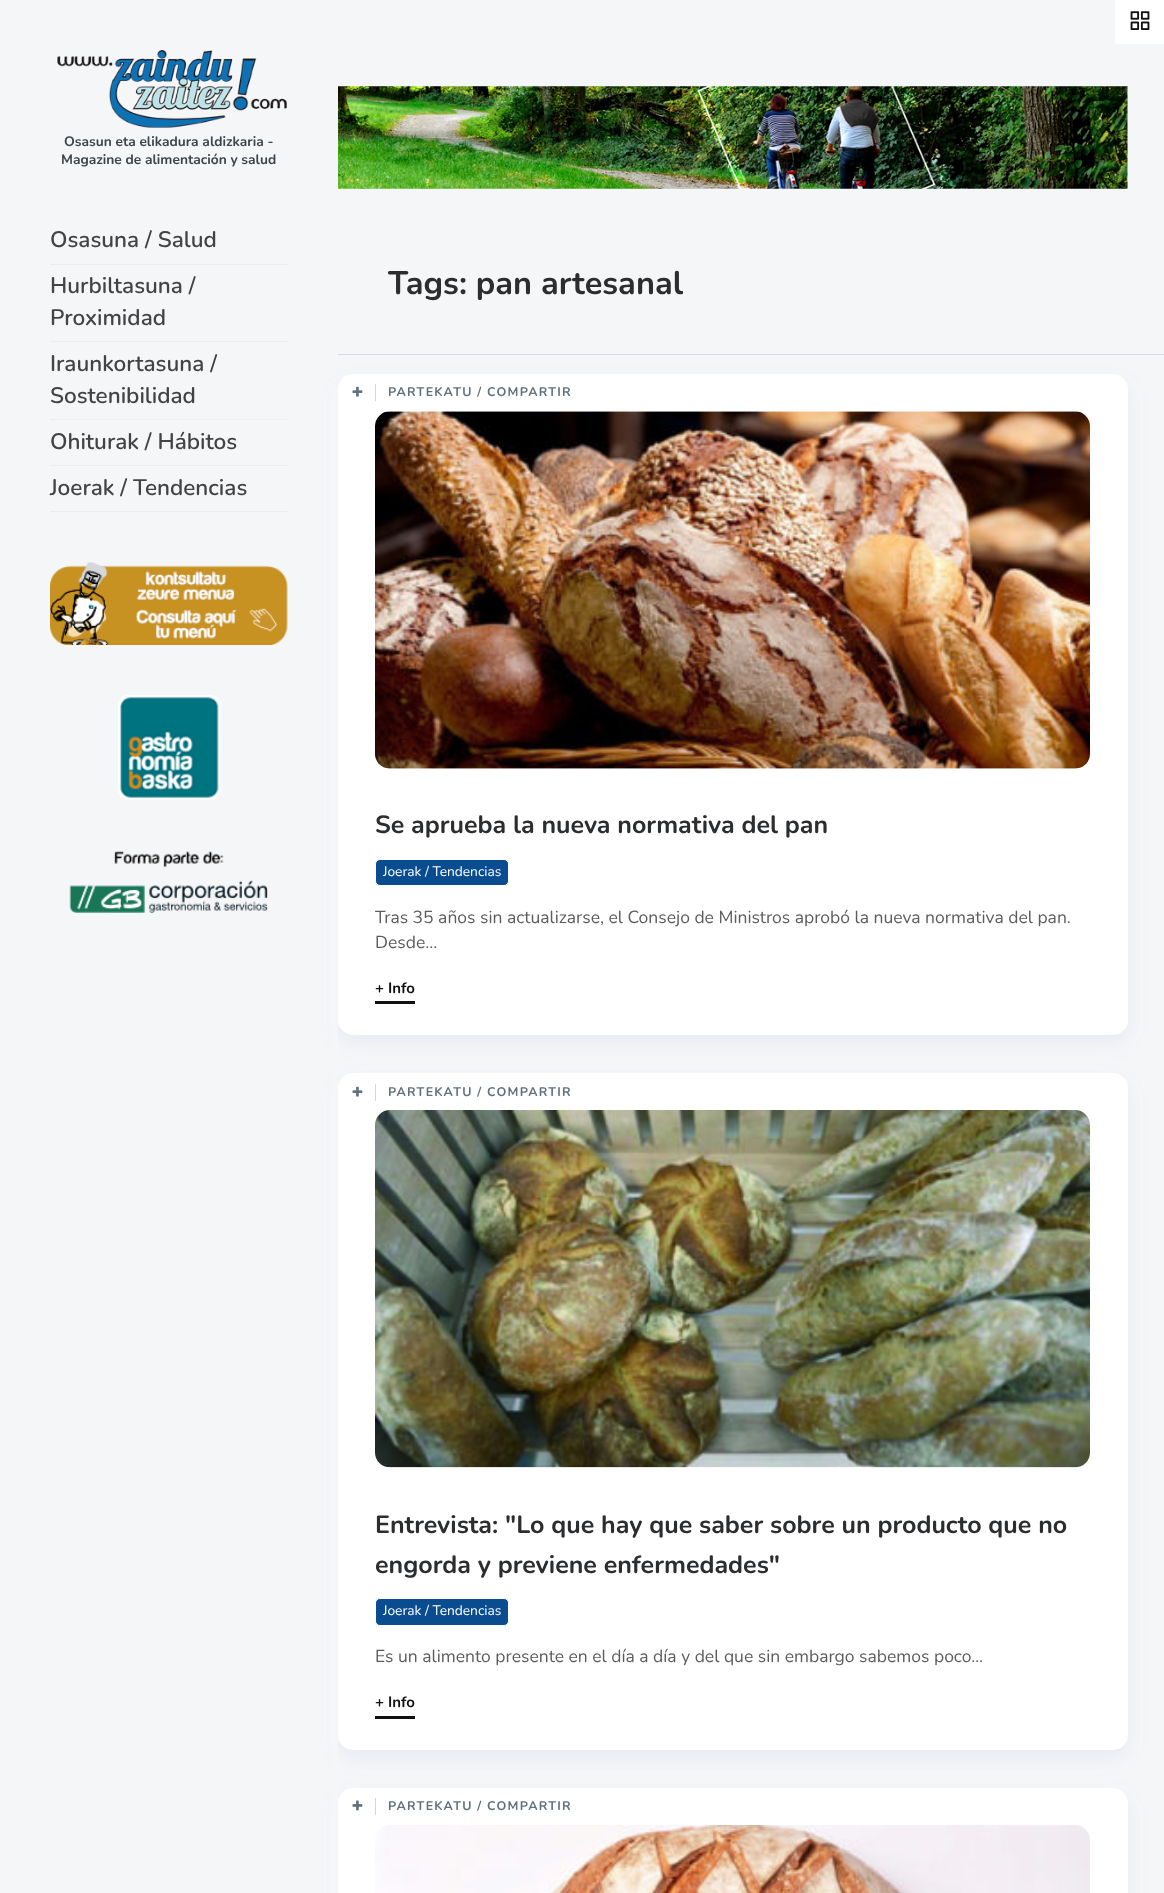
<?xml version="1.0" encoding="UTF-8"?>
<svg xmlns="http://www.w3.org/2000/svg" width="1164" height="1893">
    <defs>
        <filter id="blur1" x="-50%" y="-200%" width="200%" height="500%"><feGaussianBlur stdDeviation="9"/></filter>
    </defs>
    <rect width="100%" height="100%" fill="#F5F6F8"/>
    <rect x="1115" y="0" width="49" height="44" fill="#FFFFFF"/>
    <image x="1130" y="11" width="20" height="19" href="img_01.png"/>
    <rect x="338" y="383" width="790" height="661" rx="15" fill="#97A0CC" fill-opacity="0.12" filter="url(#blur1)"/>
    <rect x="338" y="1081" width="790" height="678" rx="15" fill="#97A0CC" fill-opacity="0.12" filter="url(#blur1)"/>
    <rect x="338" y="1796" width="790" height="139" rx="15" fill="#97A0CC" fill-opacity="0.12" filter="url(#blur1)"/>
    <rect x="331" y="386" width="7" height="1507" fill="#F5F6F8"/>
    <image x="57" y="50" width="230" height="78" href="img_02.png"/>
    <text x="64" y="146" font-family="Nunito" font-size="13.75" font-weight="700" fill="#3D444B">Osasun eta elikadura aldizkaria -</text>
    <text x="61" y="164" font-family="Nunito" font-size="13.75" font-weight="700" fill="#3D444B">Magazine de alimentación y salud</text>
    <rect x="50" y="264" width="238" height="1" fill="#EBECEE"/>
    <text x="50" y="247" font-family="Nunito" font-size="22.5" font-weight="600" fill="#414344">Osasuna / Salud</text>
    <rect x="50" y="341" width="238" height="1" fill="#EBECEE"/>
    <text font-family="Nunito" font-size="22.5" font-weight="600" fill="#414344">
        <tspan x="50" y="293">Hurbiltasuna /</tspan>
        <tspan x="50" y="325">Proximidad</tspan>
    </text>
    <rect x="50" y="419" width="238" height="1" fill="#EBECEE"/>
    <text font-family="Nunito" font-size="22.5" font-weight="600" fill="#414344">
        <tspan x="50" y="371">Iraunkortasuna /</tspan>
        <tspan x="50" y="403">Sostenibilidad</tspan>
    </text>
    <rect x="50" y="465" width="238" height="1" fill="#EBECEE"/>
    <text x="50" y="449" font-family="Nunito" font-size="22.5" font-weight="600" fill="#414344">Ohiturak / Hábitos</text>
    <rect x="50" y="511" width="238" height="1" fill="#EBECEE"/>
    <text x="50" y="495" font-family="Nunito" font-size="22.5" font-weight="600" fill="#414344">Joerak / Tendencias</text>
    <image x="50" y="562" width="238" height="83" href="img_03.png"/>
    <image x="118" y="695" width="103" height="105" href="img_04.png"/>
    <image x="69" y="851" width="199" height="62" href="img_05.png"/>
    <image x="338" y="86" width="790" height="103" href="img_06.png"/>
    <rect x="338" y="354" width="826" height="1" fill="#D7DBE3"/>
    <text x="388" y="294" font-family="Nunito" font-size="32.5" font-weight="700" fill="#2C2D2F">Tags: pan artesanal</text>
    <rect x="338" y="374" width="790" height="661" rx="15" fill="#FFFFFF"/>
    <image x="352" y="386" width="11" height="11" href="img_07.png"/>
    <text x="388" y="396" font-family="Nunito" font-size="12.5" font-weight="700" letter-spacing="1.25" fill="#60717E">PARTEKATU / COMPARTIR</text>
    <rect x="375" y="384" width="1" height="17" fill="#CCD9E2"/>
    <image x="375" y="411" width="715" height="358" href="img_08.png"/>
    <text x="375" y="833" font-family="Nunito" font-size="25" font-weight="700" fill="#2C2D2F">Se aprueba la nueva normativa del pan</text>
    <rect x="375.5" y="859.5" width="133" height="26" rx="4.5" fill="#0A4C90" stroke="#FFFFFF"/>
    <text x="383" y="876" font-family="Nunito" font-size="13.75" fill="#FFFFFF">Joerak / Tendencias</text>
    <text font-family="Nunito" font-size="17.5" fill="#5C5C5C">
        <tspan x="375" y="923">Tras 35 años sin actualizarse, el Consejo de Ministros aprobó la nueva normativa del pan.</tspan>
        <tspan x="375" y="948">Desde...</tspan>
    </text>
    <rect x="375" y="1001" width="40" height="3" fill="#111111"/>
    <text x="375" y="993" font-family="Nunito" font-size="15" font-weight="700" fill="#111111">+ Info</text>
    <rect x="338" y="1073" width="790" height="677" rx="15" fill="#FFFFFF"/>
    <image x="352" y="1086" width="11" height="11" href="img_07.png"/>
    <text x="388" y="1096" font-family="Nunito" font-size="12.5" font-weight="700" letter-spacing="1.25" fill="#60717E">PARTEKATU / COMPARTIR</text>
    <rect x="375" y="1084" width="1" height="17" fill="#CCD9E2"/>
    <image x="375" y="1110" width="715" height="358" href="img_09.png"/>
    <text font-family="Nunito" font-size="25" font-weight="700" fill="#2C2D2F">
        <tspan x="375" y="1533">Entrevista: "Lo que hay que saber sobre un producto que no</tspan>
        <tspan x="375" y="1573">engorda y previene enfermedades"</tspan>
    </text>
    <rect x="375.5" y="1598.5" width="133" height="27" rx="4.5" fill="#0A4C90" stroke="#FFFFFF"/>
    <text x="383" y="1615" font-family="Nunito" font-size="13.75" fill="#FFFFFF">Joerak / Tendencias</text>
    <text x="375" y="1662" font-family="Nunito" font-size="17.5" fill="#5C5C5C">Es un alimento presente en el día a día y del que sin embargo sabemos poco...</text>
    <rect x="375" y="1716" width="40" height="3" fill="#111111"/>
    <text x="375" y="1707" font-family="Nunito" font-size="15" font-weight="700" fill="#111111">+ Info</text>
    <rect x="338" y="1788" width="790" height="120" rx="15" fill="#FFFFFF"/>
    <image x="352" y="1800" width="11" height="11" href="img_10.png"/>
    <text x="388" y="1810" font-family="Nunito" font-size="12.5" font-weight="700" letter-spacing="1.25" fill="#60717E">PARTEKATU / COMPARTIR</text>
    <rect x="375" y="1798" width="1" height="17" fill="#CCD9E2"/>
    <image x="375" y="1825" width="715" height="68" href="img_11.png"/>
</svg>
